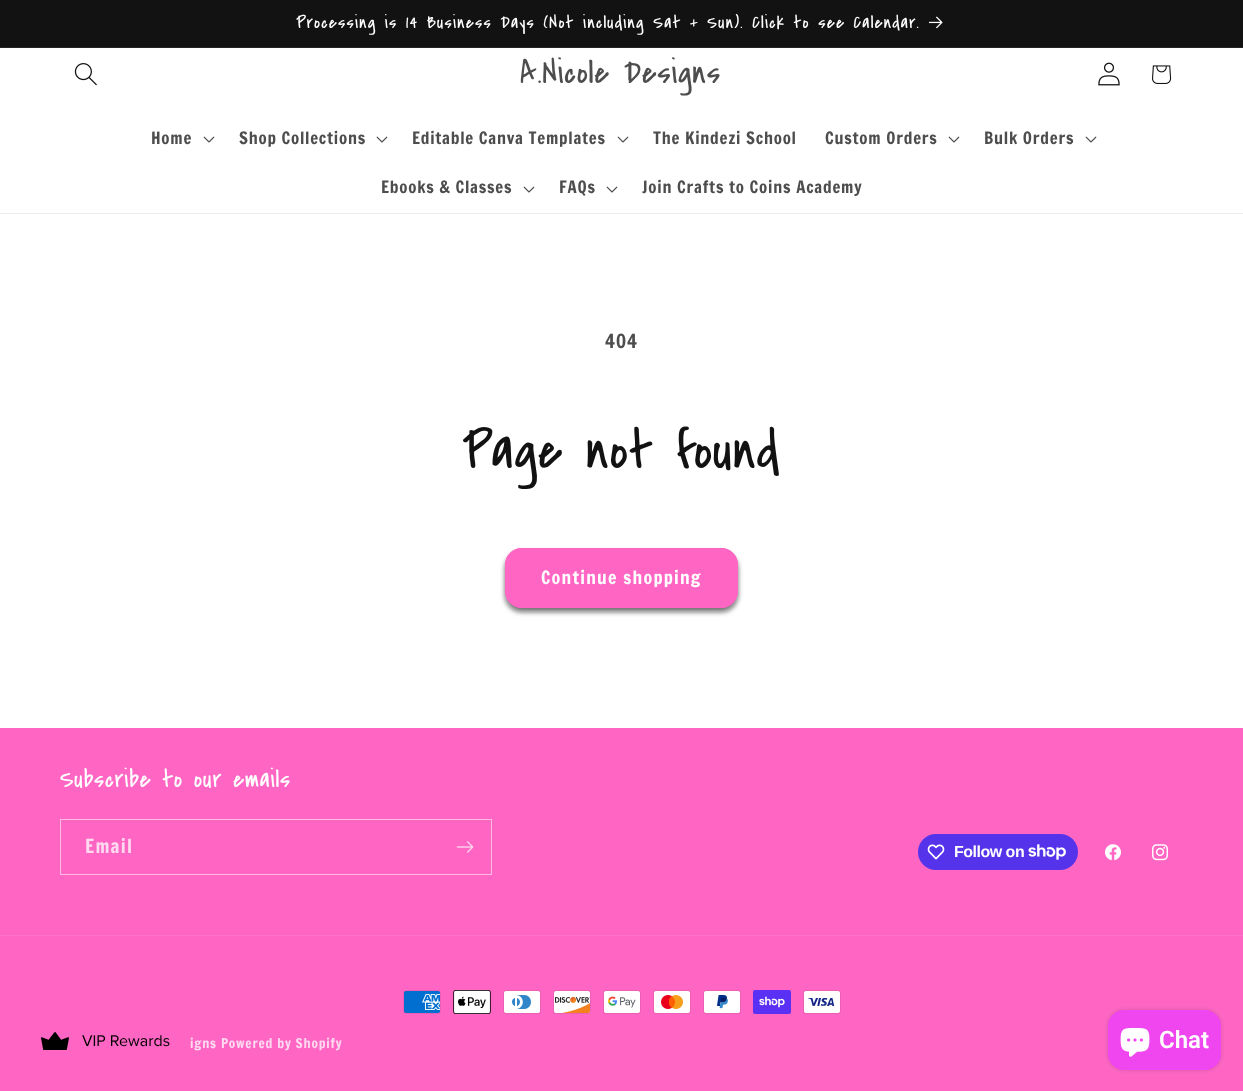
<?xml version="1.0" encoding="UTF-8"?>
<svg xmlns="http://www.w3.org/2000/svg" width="1243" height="1091">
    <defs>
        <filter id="blur1" x="-50%" y="-200%" width="200%" height="500%"><feGaussianBlur stdDeviation="2.5"/></filter>
    </defs>
    <rect width="100%" height="100%" fill="#FFFFFF"/>
    <rect x="0" y="0" width="1243" height="47" fill="#121212"/>
    <rect x="0" y="47" width="1243" height="1" fill="#252525"/>
    <text x="296" y="28" font-family="Covered By Your Grace" font-size="18.2" letter-spacing="1.2" fill="#FFFFFF">Processing is 14 Business Days (Not including Sat + Sun). Click to see Calendar.</text>
    <image x="929" y="16" width="14" height="13" href="img_01.png"/>
    <rect x="0" y="213" width="1243" height="1" fill="#ECECEC"/>
    <image x="74" y="63" width="23" height="23" href="img_02.png"/>
    <text x="520" y="83" font-family="Covered By Your Grace" font-size="33.5" letter-spacing="0.8" fill="#4D4D4D">A.Nicole Designs</text>
    <image x="1098" y="62" width="22" height="24" href="img_03.png"/>
    <image x="1152" y="65" width="20" height="19" href="img_04.png"/>
    <text x="151" y="144" font-family="Francois One" font-size="16.75" letter-spacing="0.75" fill="#4D4D4D">Home</text>
    <image x="203" y="136" width="12" height="7" href="img_05.png"/>
    <text x="239" y="144" font-family="Francois One" font-size="16.75" letter-spacing="0.75" fill="#4D4D4D">Shop Collections</text>
    <image x="376" y="136" width="12" height="7" href="img_05.png"/>
    <text x="412" y="144" font-family="Francois One" font-size="16.75" letter-spacing="0.75" fill="#4D4D4D">Editable Canva Templates</text>
    <image x="617" y="136" width="12" height="7" href="img_05.png"/>
    <text x="653" y="144" font-family="Francois One" font-size="16.75" letter-spacing="0.75" fill="#4D4D4D">The Kindezi School</text>
    <text x="825" y="144" font-family="Francois One" font-size="16.75" letter-spacing="0.75" fill="#4D4D4D">Custom Orders</text>
    <image x="948" y="136" width="12" height="7" href="img_05.png"/>
    <text x="984" y="144" font-family="Francois One" font-size="16.75" letter-spacing="0.75" fill="#4D4D4D">Bulk Orders</text>
    <image x="1085" y="136" width="12" height="7" href="img_05.png"/>
    <text x="381" y="193" font-family="Francois One" font-size="16.75" letter-spacing="0.75" fill="#4D4D4D">Ebooks &amp; Classes</text>
    <image x="523" y="186" width="12" height="7" href="img_05.png"/>
    <text x="559" y="193" font-family="Francois One" font-size="16.75" letter-spacing="0.75" fill="#4D4D4D">FAQs</text>
    <image x="606" y="186" width="12" height="7" href="img_05.png"/>
    <text x="642" y="193" font-family="Francois One" font-size="16.75" letter-spacing="0.75" fill="#4D4D4D">Join Crafts to Coins Academy</text>
    <text x="605" y="348" font-family="Francois One" font-size="19" letter-spacing="0.75" fill="#4D4D4D">404</text>
    <text x="462" y="468" font-family="Covered By Your Grace" font-size="56" letter-spacing="0.8" fill="#121212">Page not found</text>
    <rect x="505" y="552" width="233" height="60" rx="17" fill="#121212" fill-opacity="0.6" filter="url(#blur1)"/>
    <rect x="505" y="548" width="233" height="60" rx="17" fill="#FF66C4"/>
    <rect x="506.5" y="549.5" width="230" height="57" rx="15.5" fill="none" stroke="#FF66C4" stroke-width="3"/>
    <text x="541" y="584" font-family="Francois One" font-size="18" letter-spacing="1.2" fill="#FFFFFF">Continue shopping</text>
    <rect x="0" y="728" width="1243" height="363" fill="#FF66C4"/>
    <text x="60" y="787" font-family="Covered By Your Grace" font-size="25.25" letter-spacing="0.8" fill="#FFFFFF">Subscribe to our emails</text>
    <rect x="60.5" y="819.5" width="431" height="55" fill="none" stroke="#FFBAE4"/>
    <text x="85" y="853" font-family="Francois One" font-size="19" letter-spacing="1.2" fill="#FFD9F0">Email</text>
    <image x="456" y="841" width="18" height="12" href="img_06.png"/>
    <rect x="918" y="834" width="160" height="36" rx="18" fill="#5433EB"/>
    <image x="927" y="844" width="18" height="16" href="img_07.png"/>
    <text x="954" y="857" font-family="Liberation Sans" font-size="16" font-weight="700" letter-spacing="-0.5" fill="#FFFFFF">Follow on</text>
    <image x="1028" y="844" width="38" height="16" href="img_08.png"/>
    <image x="1105" y="844" width="16" height="17" href="img_09.png"/>
    <image x="1152" y="844" width="16" height="17" href="img_10.png"/>
    <rect x="0" y="935" width="1243" height="1" fill="#FF72C9"/>
    <image x="403" y="990" width="38" height="24" href="img_11.png"/>
    <image x="453" y="990" width="38" height="24" href="img_12.png"/>
    <image x="503" y="990" width="38" height="24" href="img_13.png"/>
    <image x="553" y="990" width="38" height="24" href="img_14.png"/>
    <image x="603" y="990" width="38" height="24" href="img_15.png"/>
    <image x="653" y="990" width="38" height="24" href="img_16.png"/>
    <image x="703" y="990" width="38" height="24" href="img_17.png"/>
    <image x="753" y="990" width="38" height="24" href="img_18.png"/>
    <image x="803" y="990" width="38" height="24" href="img_19.png"/>
    <text x="190" y="1048" font-family="Francois One" font-size="13.25" letter-spacing="0.8" fill="#FFD9F0">igns Powered by Shopify</text>
    <rect x="1108" y="1010" width="113" height="60" rx="16" fill="#000000" fill-opacity="0.15" filter="url(#blur1)"/>
    <rect x="1108" y="1010" width="113" height="60" rx="16" fill="#F046F0"/>
    <image x="1120" y="1028" width="30" height="29" href="img_20.png"/>
    <text x="1159" y="1048" font-family="Roboto" font-size="24" font-weight="600" fill="#FFFFFF">Chat</text>
    <image x="41" y="1032" width="148" height="18" href="img_21.png"/>
</svg>
